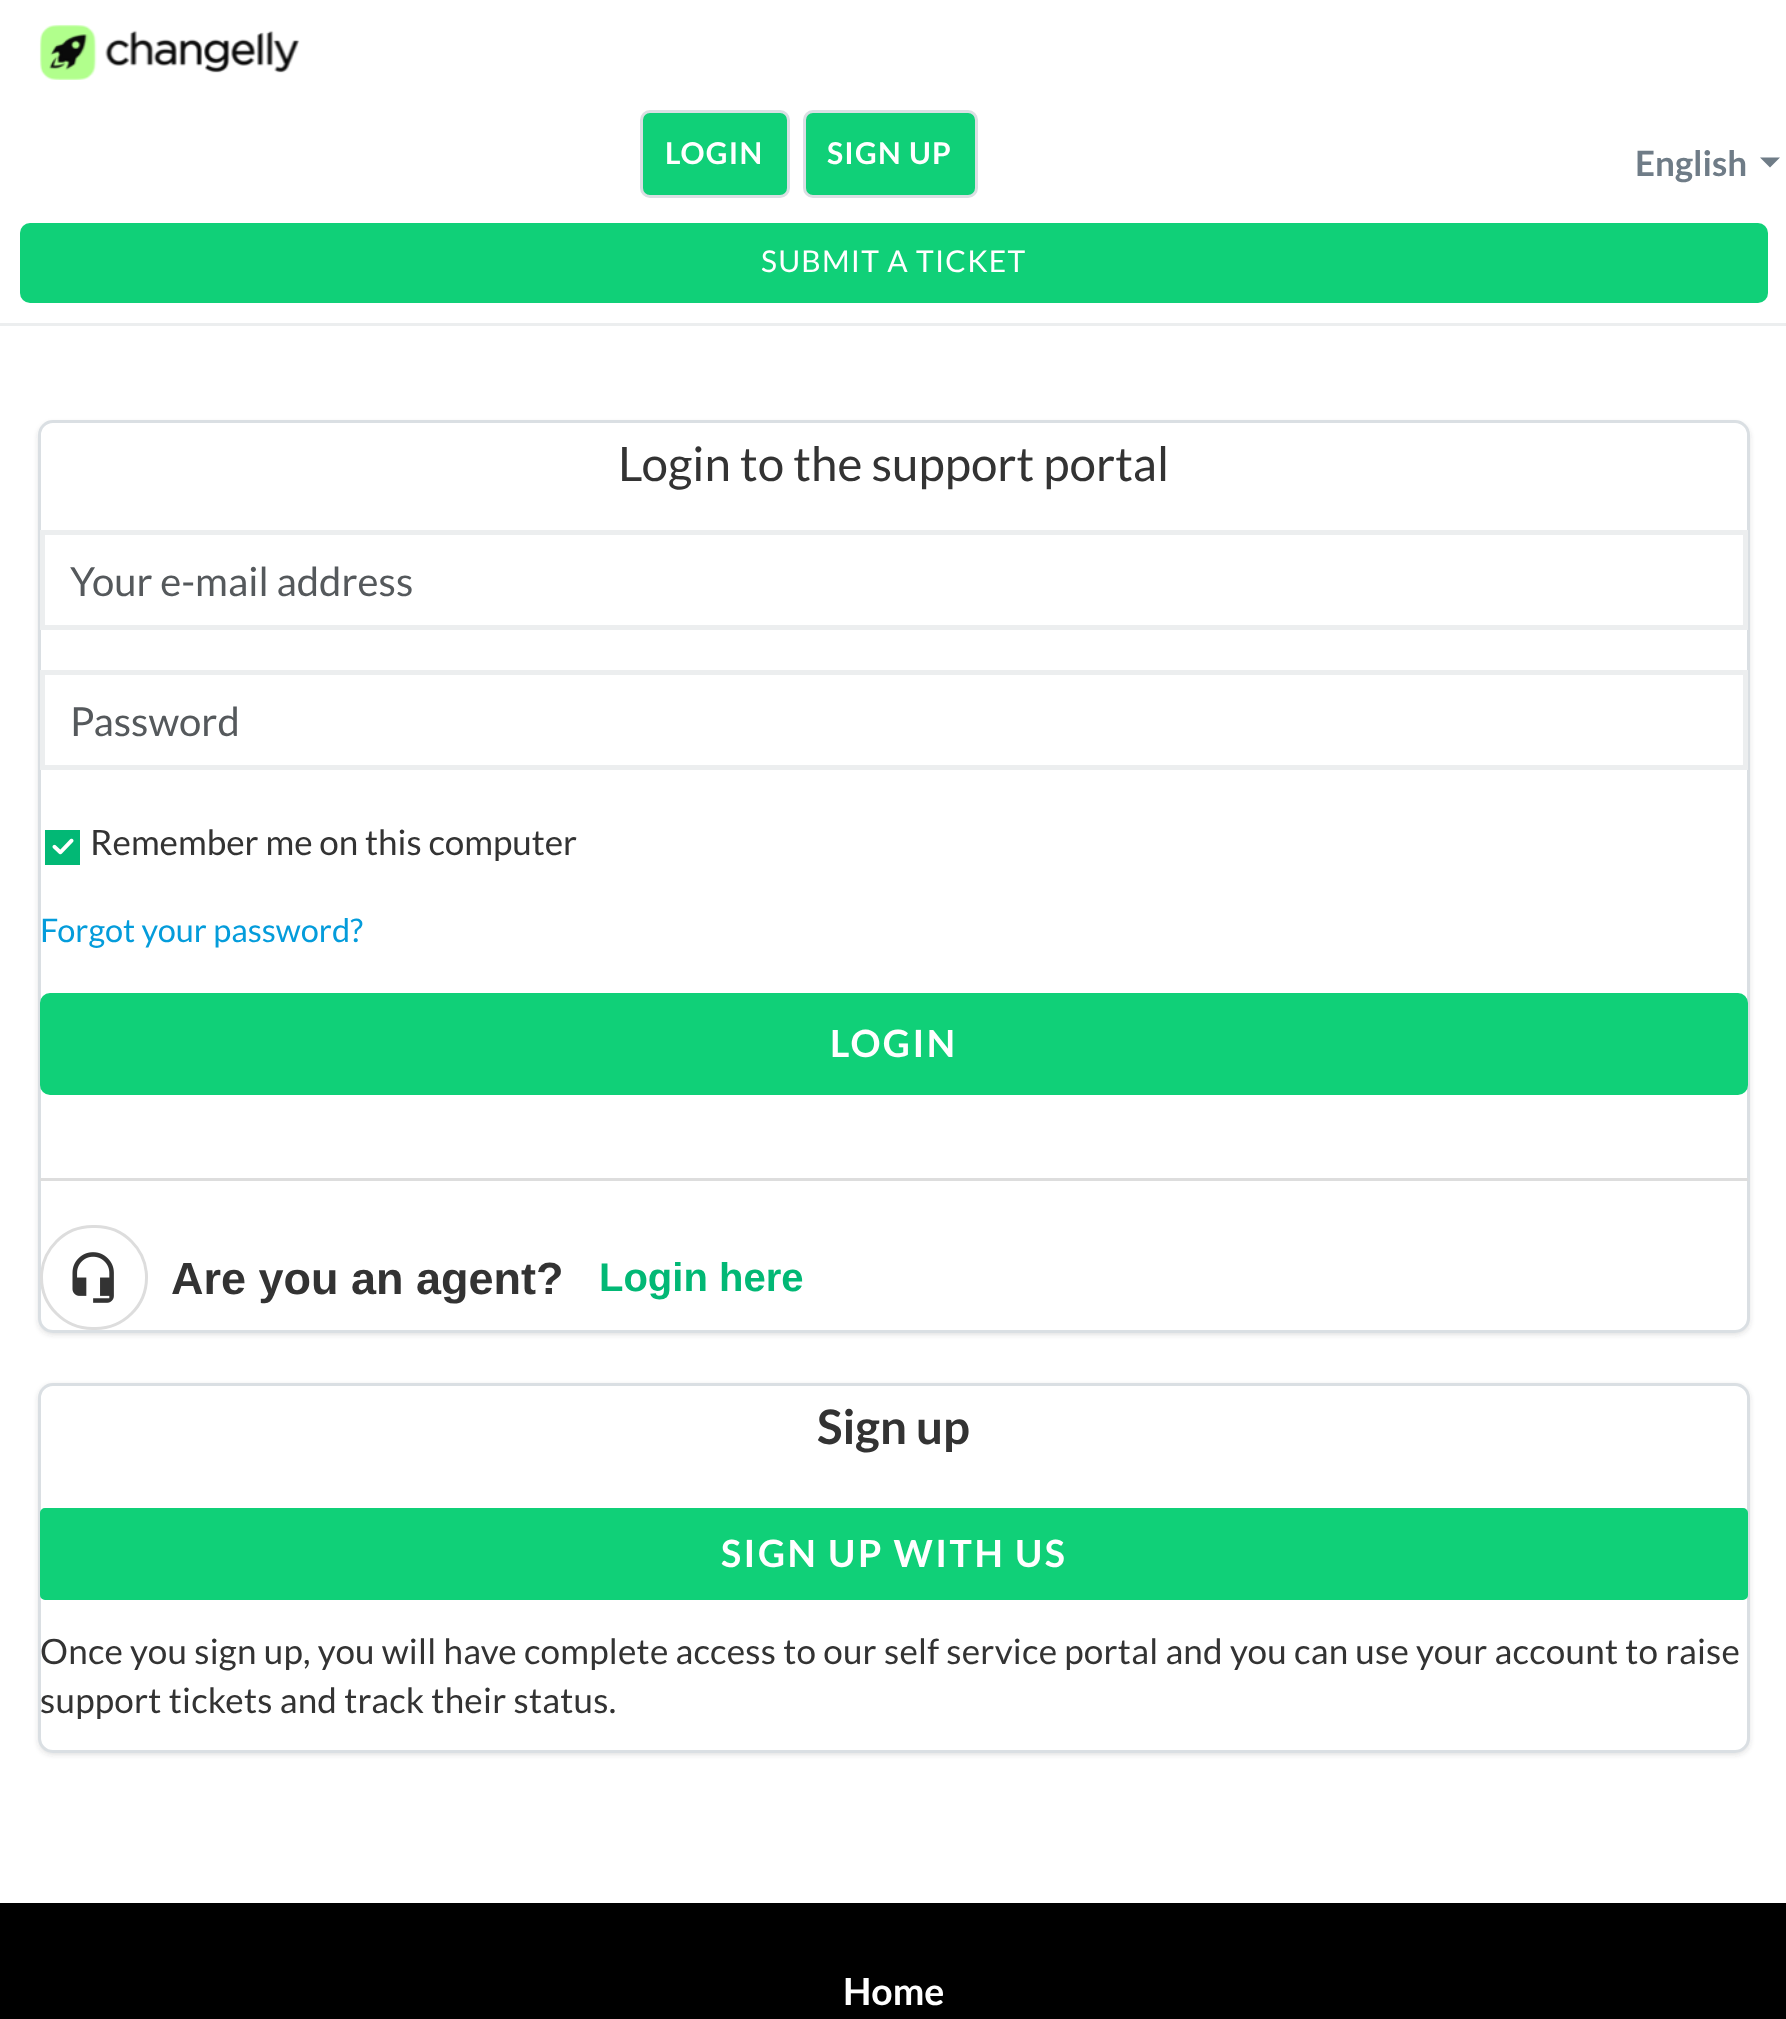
<?xml version="1.0" encoding="UTF-8"?>
<svg xmlns="http://www.w3.org/2000/svg" width="1786" height="2019">
    <defs>
        <filter id="blur1" x="-50%" y="-200%" width="200%" height="500%"><feGaussianBlur stdDeviation="2.5"/></filter>
    </defs>
    <rect width="100%" height="100%" fill="#FFFFFF"/>
    <rect x="0" y="323" width="1786" height="3" fill="#ECEEEF"/>
    <image x="39" y="24" width="261" height="56" href="img_01.png"/>
    <rect x="641.5" y="111.5" width="147" height="85" rx="8.5" fill="#10D078" stroke="#DADFE3" stroke-width="3"/>
    <text x="665" y="164" font-family="Lato" font-size="30" font-weight="700" letter-spacing="1.25" fill="#FFFFFF">LOGIN</text>
    <rect x="804.5" y="111.5" width="172" height="85" rx="8.5" fill="#10D078" stroke="#DADFE3" stroke-width="3"/>
    <text x="827" y="164" font-family="Lato" font-size="30" font-weight="700" letter-spacing="1.25" fill="#FFFFFF">SIGN UP</text>
    <text x="1635" y="176" font-family="Lato" font-size="35" font-weight="700" fill="#6F7C87">English</text>
    <path d="M 1760 157.5 H 1780 L 1770 167.5 Z" fill="#6F7C87"/>
    <rect x="20" y="223" width="1748" height="80" rx="10" fill="#10D078"/>
    <text x="761" y="272" font-family="Lato" font-size="30" letter-spacing="1.25" fill="#FFFFFF">SUBMIT A TICKET</text>
    <rect x="38" y="423" width="1712" height="912" rx="15" fill="#3F3F44" fill-opacity="0.15" filter="url(#blur1)"/>
    <rect x="39.5" y="421.5" width="1709" height="910" rx="13.5" fill="#FFFFFF" stroke="#DADFE3" stroke-width="3"/>
    <text x="618" y="481" font-family="Lato" font-size="47.5" fill="#333333">Login to the support portal</text>
    <rect x="42.5" y="532.5" width="1703" height="95" fill="none" stroke="#ECEEEF" stroke-width="5"/>
    <text x="70" y="596" font-family="Lato" font-size="40" fill="#55595C">Your e-mail address</text>
    <rect x="42.5" y="672.5" width="1703" height="95" fill="none" stroke="#ECEEEF" stroke-width="5"/>
    <text x="70" y="736" font-family="Lato" font-size="40" fill="#55595C">Password</text>
    <rect x="45" y="830" width="35" height="35" fill="#02B875"/>
    <image x="52" y="838" width="22" height="17" href="img_02.png"/>
    <text x="90" y="855" font-family="Lato" font-size="35" fill="#333333">Remember me on this computer</text>
    <text x="40" y="942" font-family="Lato" font-size="32.5" fill="#049CDB">Forgot your password?</text>
    <rect x="41.5" y="994.5" width="1705" height="99" rx="8.5" fill="#10D078" stroke="#10D078" stroke-width="3"/>
    <text x="830" y="1057" font-family="Lato" font-size="37.5" font-weight="700" letter-spacing="2.5" fill="#FFFFFF">LOGIN</text>
    <rect x="40" y="1178" width="1708" height="3" fill="#DDDDDD"/>
    <rect x="41.5" y="1226.5" width="105" height="102" rx="51" fill="#FFFFFF" stroke="#DDDDDD" stroke-width="3"/>
    <image x="72" y="1252" width="42" height="51" href="img_03.png"/>
    <text x="171" y="1294" font-family="Liberation Sans" font-size="45" font-weight="700" fill="#333333">Are you an agent?</text>
    <text x="599" y="1291" font-family="Liberation Sans" font-size="40" font-weight="700" fill="#02B875">Login here</text>
    <rect x="38" y="1385" width="1712" height="370" rx="15" fill="#3F3F44" fill-opacity="0.15" filter="url(#blur1)"/>
    <rect x="39.5" y="1384.5" width="1709" height="367" rx="13.5" fill="#FFFFFF" stroke="#DADFE3" stroke-width="3"/>
    <text x="817" y="1444" font-family="Lato" font-size="47.5" font-weight="700" fill="#333333">Sign up</text>
    <rect x="41.5" y="1509.5" width="1705" height="89" rx="3.5" fill="#10D078" stroke="#10D078" stroke-width="3"/>
    <text x="721" y="1567" font-family="Lato" font-size="37.5" font-weight="700" letter-spacing="2.5" fill="#FFFFFF">SIGN UP WITH US</text>
    <text font-family="Lato" font-size="35" letter-spacing="0.25" fill="#333333">
        <tspan x="40" y="1664">Once you sign up, you will have complete access to our self service portal and you can use your account to raise</tspan>
        <tspan x="40" y="1713">support tickets and track their status.</tspan>
    </text>
    <rect x="0" y="1903" width="1786" height="116" fill="#000000"/>
    <text x="843" y="2005" font-family="Lato" font-size="37.5" font-weight="700" fill="#FFFFFF">Home</text>
</svg>
